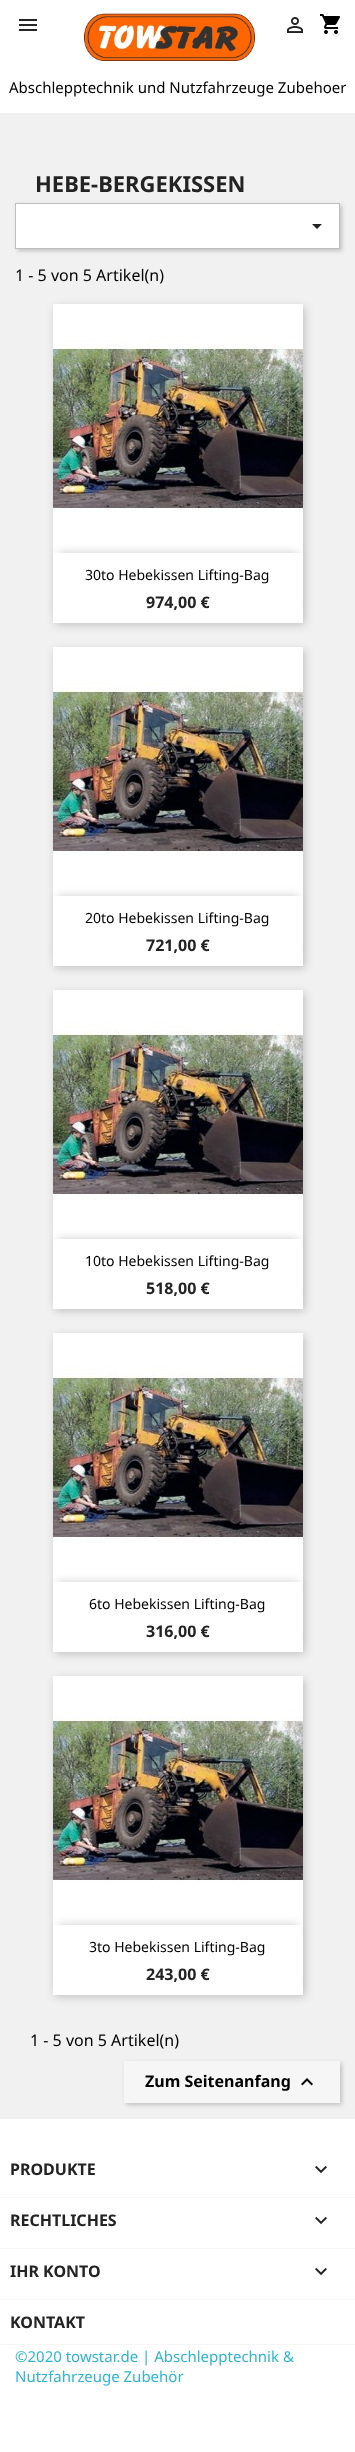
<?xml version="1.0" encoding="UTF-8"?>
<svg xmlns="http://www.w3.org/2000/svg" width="355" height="2452">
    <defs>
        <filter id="blur1" x="-50%" y="-200%" width="200%" height="500%"><feGaussianBlur stdDeviation="2"/></filter>
        <filter id="blur2" x="-50%" y="-200%" width="200%" height="500%"><feGaussianBlur stdDeviation="4"/></filter>
        <clipPath id="clip1"><path d="M 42 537 H 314 V 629 H 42 Z M 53 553 H 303 V 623 H 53 Z" clip-rule="evenodd"/></clipPath>
        <filter id="blur3" x="-50%" y="-200%" width="200%" height="500%"><feGaussianBlur stdDeviation="5"/></filter>
        <clipPath id="clip2"><path d="M 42 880 H 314 V 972 H 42 Z M 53 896 H 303 V 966 H 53 Z" clip-rule="evenodd"/></clipPath>
        <clipPath id="clip3"><path d="M 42 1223 H 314 V 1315 H 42 Z M 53 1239 H 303 V 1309 H 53 Z" clip-rule="evenodd"/></clipPath>
        <clipPath id="clip4"><path d="M 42 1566 H 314 V 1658 H 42 Z M 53 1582 H 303 V 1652 H 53 Z" clip-rule="evenodd"/></clipPath>
        <clipPath id="clip5"><path d="M 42 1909 H 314 V 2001 H 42 Z M 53 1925 H 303 V 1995 H 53 Z" clip-rule="evenodd"/></clipPath>
    </defs>
    <rect width="100%" height="100%" fill="#FFFFFF"/>
    <rect x="0" y="113" width="355" height="2006" fill="#F1F1F1"/>
    <image x="19" y="19" width="18" height="12" href="img_01.png"/>
    <image x="287" y="17" width="16" height="16" href="img_02.png"/>
    <image x="320" y="14" width="20" height="20" href="img_03.png"/>
    <image x="84" y="11" width="171" height="50" href="img_04.png"/>
    <text x="9" y="93" font-family="Noto Sans" font-size="15" fill="#000000">Abschlepptechnik und Nutzfahrzeuge Zubehoer</text>
    <text x="35" y="192" font-family="Noto Sans" font-size="22" font-weight="700" fill="#232323">HEBE-BERGEKISSEN</text>
    <rect x="17" y="205" width="325" height="46" fill="#000000" fill-opacity="0.2" filter="url(#blur1)"/>
    <rect x="15.5" y="203.5" width="324" height="45" fill="#FFFFFF" stroke="#BFBFBF"/>
    <path d="M 312 224 H 322 L 317 229 Z" fill="#232323"/>
    <text x="15" y="281" font-family="Noto Sans" font-size="16" fill="#000000">1 - 5 von 5 Artikel(n)</text>
    <rect x="55" y="307" width="250" height="318" fill="#000000" fill-opacity="0.2" filter="url(#blur2)"/>
    <rect x="53" y="512" width="250" height="111" fill="#FFFFFF"/>
    <image x="53" y="304" width="250" height="208" href="img_05.png"/>
    <g clip-path="url(#clip1)">
        <rect x="58" y="553" width="240" height="60" fill="#000000" fill-opacity="0.2" filter="url(#blur3)"/>
    </g>
    <text x="85" y="580" font-family="Noto Sans" font-size="14" fill="#000000">30to Hebekissen Lifting-Bag</text>
    <text x="146" y="608" font-family="Noto Sans" font-size="16" font-weight="700" fill="#232323">974,00 €</text>
    <rect x="55" y="650" width="250" height="318" fill="#000000" fill-opacity="0.2" filter="url(#blur2)"/>
    <rect x="53" y="855" width="250" height="111" fill="#FFFFFF"/>
    <image x="53" y="647" width="250" height="208" href="img_05.png"/>
    <g clip-path="url(#clip2)">
        <rect x="58" y="896" width="240" height="60" fill="#000000" fill-opacity="0.2" filter="url(#blur3)"/>
    </g>
    <text x="85" y="923" font-family="Noto Sans" font-size="14" fill="#000000">20to Hebekissen Lifting-Bag</text>
    <text x="146" y="951" font-family="Noto Sans" font-size="16" font-weight="700" fill="#232323">721,00 €</text>
    <rect x="55" y="993" width="250" height="318" fill="#000000" fill-opacity="0.2" filter="url(#blur2)"/>
    <rect x="53" y="1198" width="250" height="111" fill="#FFFFFF"/>
    <image x="53" y="990" width="250" height="208" href="img_05.png"/>
    <g clip-path="url(#clip3)">
        <rect x="58" y="1239" width="240" height="60" fill="#000000" fill-opacity="0.2" filter="url(#blur3)"/>
    </g>
    <text x="85" y="1266" font-family="Noto Sans" font-size="14" fill="#000000">10to Hebekissen Lifting-Bag</text>
    <text x="146" y="1294" font-family="Noto Sans" font-size="16" font-weight="700" fill="#232323">518,00 €</text>
    <rect x="55" y="1336" width="250" height="318" fill="#000000" fill-opacity="0.2" filter="url(#blur2)"/>
    <rect x="53" y="1541" width="250" height="111" fill="#FFFFFF"/>
    <image x="53" y="1333" width="250" height="208" href="img_05.png"/>
    <g clip-path="url(#clip4)">
        <rect x="58" y="1582" width="240" height="60" fill="#000000" fill-opacity="0.2" filter="url(#blur3)"/>
    </g>
    <text x="89" y="1609" font-family="Noto Sans" font-size="14" fill="#000000">6to Hebekissen Lifting-Bag</text>
    <text x="146" y="1637" font-family="Noto Sans" font-size="16" font-weight="700" fill="#232323">316,00 €</text>
    <rect x="55" y="1679" width="250" height="318" fill="#000000" fill-opacity="0.2" filter="url(#blur2)"/>
    <rect x="53" y="1884" width="250" height="111" fill="#FFFFFF"/>
    <image x="53" y="1676" width="250" height="208" href="img_05.png"/>
    <g clip-path="url(#clip5)">
        <rect x="58" y="1925" width="240" height="60" fill="#000000" fill-opacity="0.2" filter="url(#blur3)"/>
    </g>
    <text x="89" y="1952" font-family="Noto Sans" font-size="14" fill="#000000">3to Hebekissen Lifting-Bag</text>
    <text x="146" y="1980" font-family="Noto Sans" font-size="16" font-weight="700" fill="#232323">243,00 €</text>
    <text x="30" y="2046" font-family="Noto Sans" font-size="16" fill="#000000">1 - 5 von 5 Artikel(n)</text>
    <rect x="126" y="2063" width="216" height="42" fill="#000000" fill-opacity="0.2" filter="url(#blur1)"/>
    <rect x="124" y="2061" width="216" height="42" fill="#F6F6F6"/>
    <text x="145" y="2087" font-family="Noto Sans" font-size="16" font-weight="700" fill="#000000">Zum Seitenanfang</text>
    <image x="301" y="2078" width="12" height="8" href="img_06.png"/>
    <rect x="0" y="2197" width="355" height="1" fill="#F6F6F6"/>
    <text x="10" y="2175" font-family="Noto Sans" font-size="16" font-weight="700" fill="#232323">PRODUKTE</text>
    <image x="315" y="2165" width="12" height="9" href="img_07.png"/>
    <rect x="0" y="2248" width="355" height="1" fill="#F6F6F6"/>
    <text x="10" y="2226" font-family="Noto Sans" font-size="16" font-weight="700" fill="#232323">RECHTLICHES</text>
    <image x="315" y="2216" width="12" height="9" href="img_07.png"/>
    <rect x="0" y="2299" width="355" height="1" fill="#F6F6F6"/>
    <text x="10" y="2277" font-family="Noto Sans" font-size="16" font-weight="700" fill="#232323">IHR KONTO</text>
    <image x="315" y="2267" width="12" height="9" href="img_07.png"/>
    <rect x="0" y="2344" width="355" height="1" fill="#F6F6F6"/>
    <text x="10" y="2328" font-family="Noto Sans" font-size="16" font-weight="700" fill="#232323">KONTAKT</text>
    <text font-family="Noto Sans" font-size="15" fill="#2FB5D2">
        <tspan x="15" y="2362">©2020 towstar.de | Abschlepptechnik &amp;</tspan>
        <tspan x="15" y="2382">Nutzfahrzeuge Zubehör</tspan>
    </text>
</svg>
